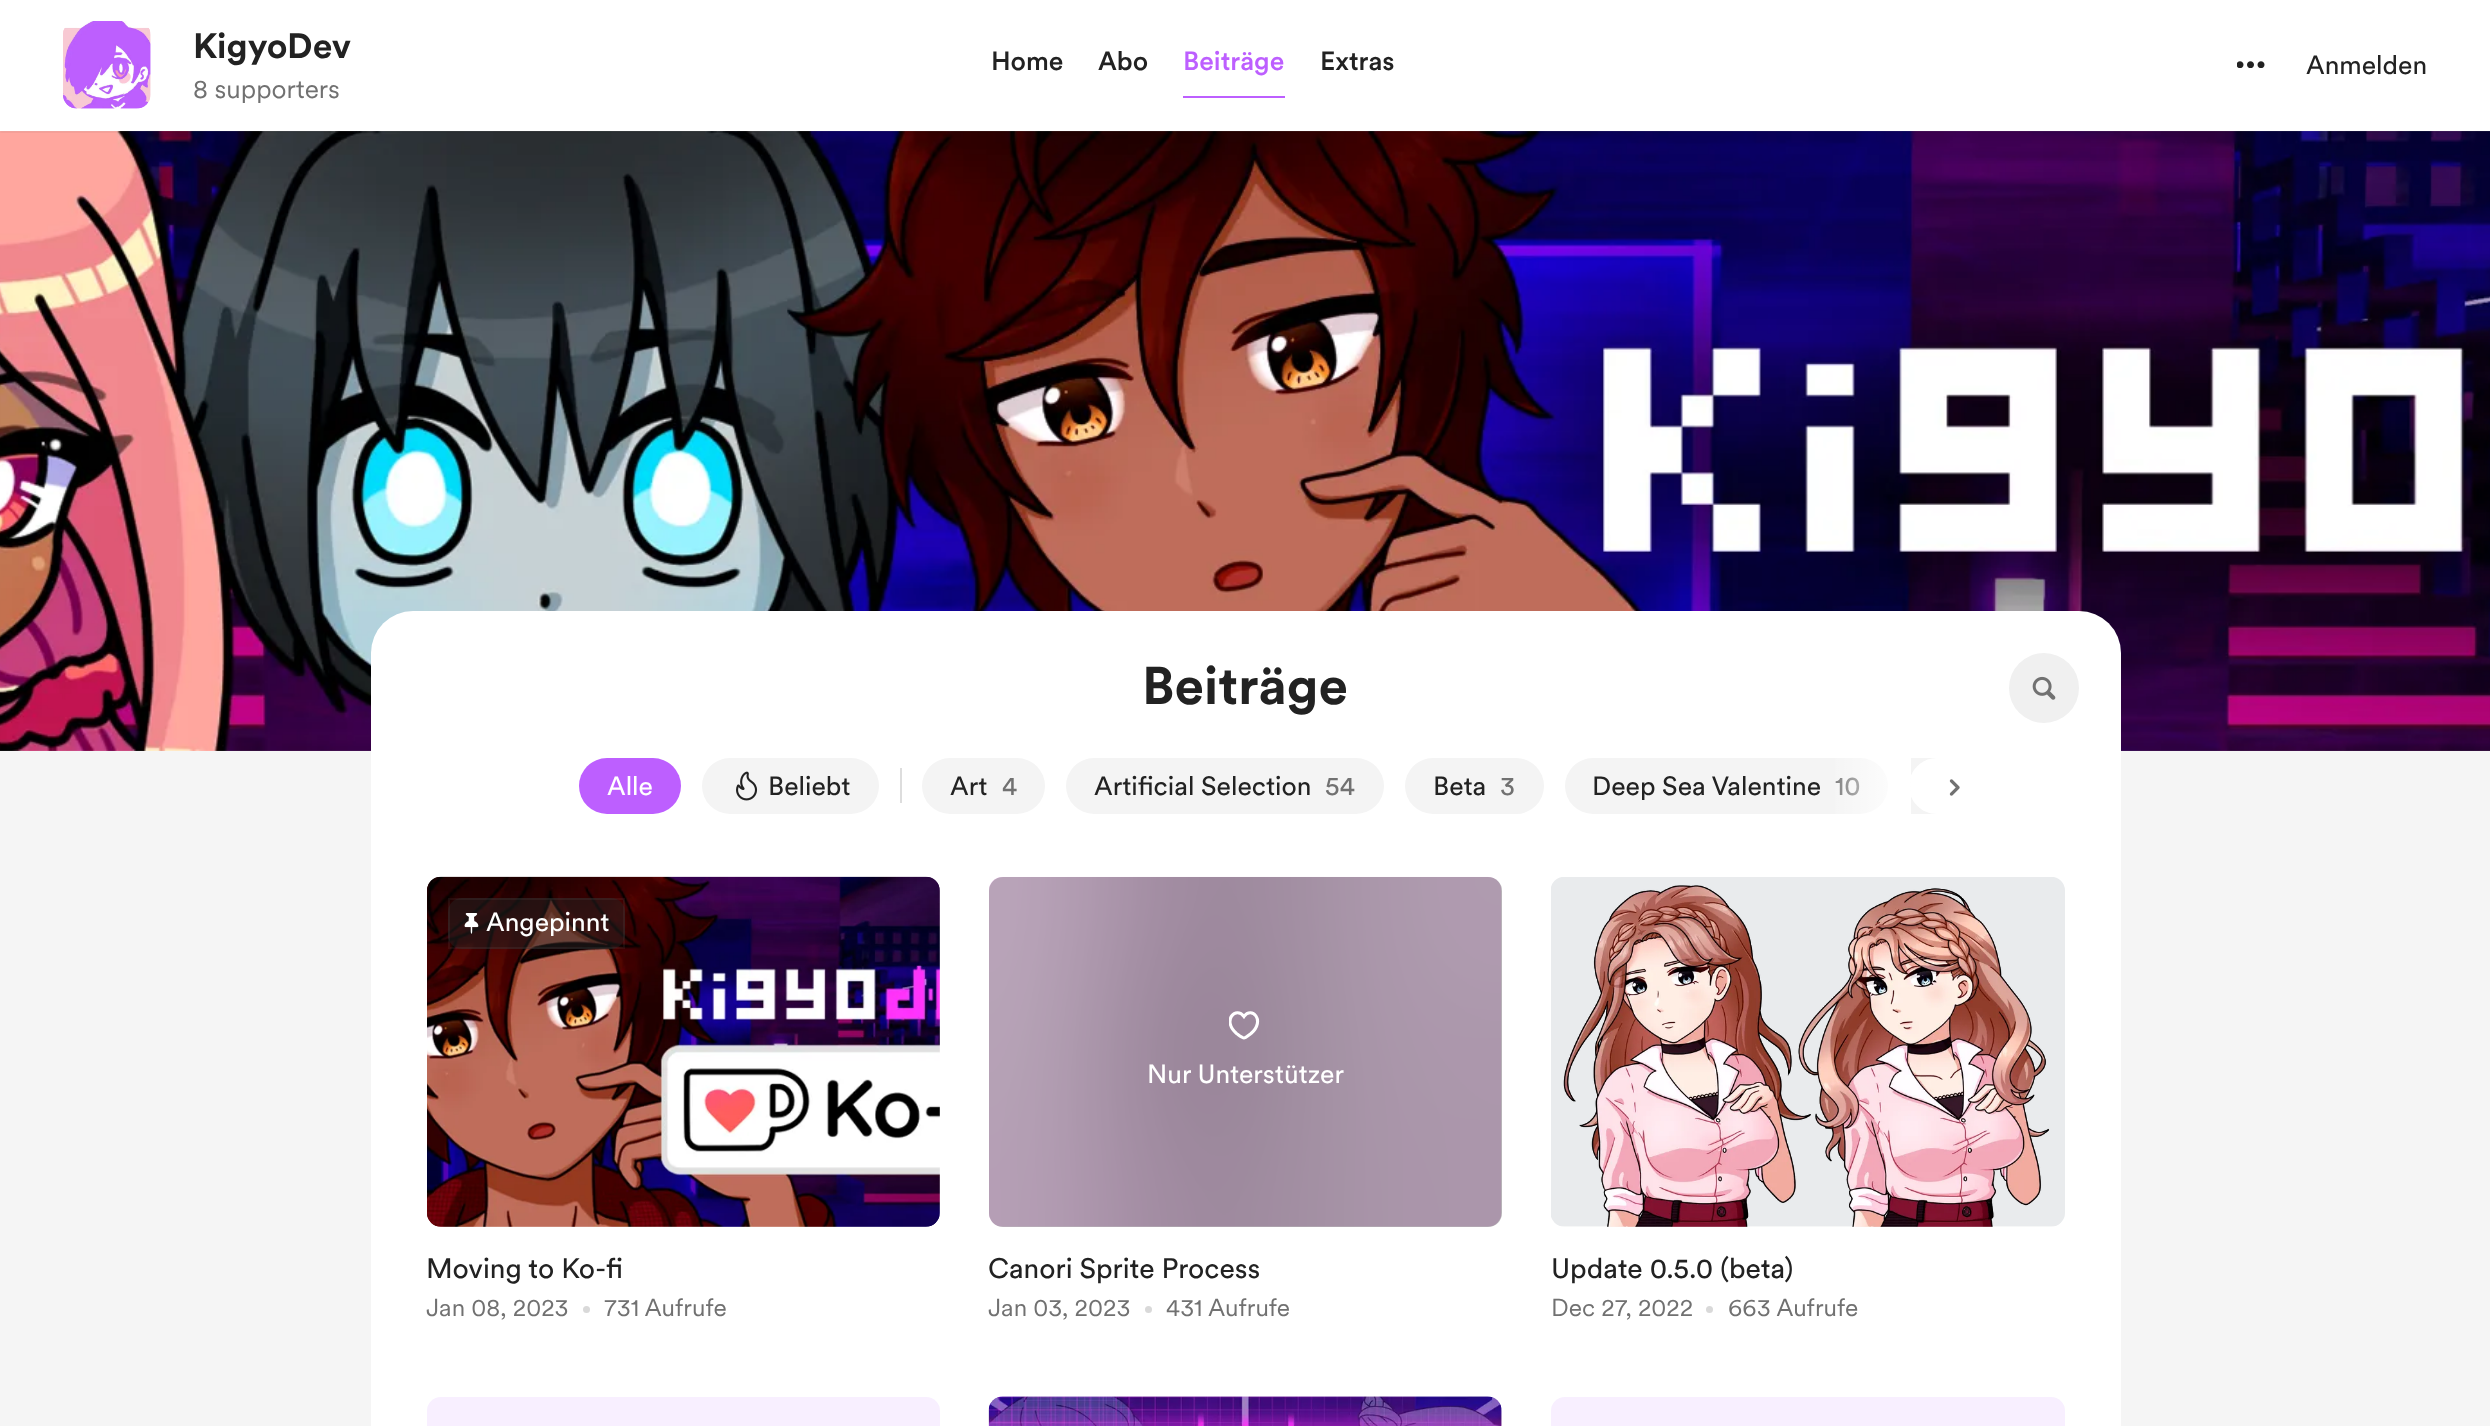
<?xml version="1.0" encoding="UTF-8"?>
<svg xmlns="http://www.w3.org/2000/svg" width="2490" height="1426">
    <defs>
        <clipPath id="clip1"><rect x="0" y="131" width="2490" height="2"/></clipPath>
        <filter id="blur1" x="-50%" y="-200%" width="200%" height="500%"><feGaussianBlur stdDeviation="1"/></filter>
        <linearGradient id="g1" gradientUnits="userSpaceOnUse" x1="1911" y1="786" x2="1824" y2="786"><stop offset="0" stop-color="#FFFFFF"/><stop offset="1" stop-color="#FFFFFF" stop-opacity="0"/></linearGradient>
        <clipPath id="clip2"><rect x="1229" y="1010" width="31" height="31"/></clipPath>
    </defs>
    <rect width="100%" height="100%" fill="#FFFFFF"/>
    <rect x="0" y="131" width="2490" height="1295" fill="#F5F5F5"/>
    <image x="0" y="131" width="2490" height="620" href="img_04.png"/>
    <image x="0" y="131" width="2490" height="620" href="img_05.png"/>
    <g clip-path="url(#clip1)">
        <rect x="0" y="2" width="2490" height="131" fill="#000000" fill-opacity="0.06" filter="url(#blur1)"/>
    </g>
    <image x="63" y="21" width="88" height="88" href="img_01.png"/>
    <image x="63" y="28" width="88" height="81" href="img_02.png"/>
    <text x="193" y="58" font-family="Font" font-size="35" font-weight="700" fill="#222222">KigyoDev</text>
    <text x="193" y="98" font-family="'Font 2'" font-size="26.25" fill="#717171">8 supporters</text>
    <text x="991" y="70" font-family="Font" font-size="26.25" font-weight="500" fill="#222222">Home</text>
    <text x="1098" y="70" font-family="Font" font-size="26.25" font-weight="500" fill="#222222">Abo</text>
    <text x="1183" y="70" font-family="Font" font-size="26.25" font-weight="500" fill="#BD5FFF">Beiträge</text>
    <rect x="1183" y="96" width="102" height="2" fill="#BD5FFF"/>
    <text x="1320" y="70" font-family="Font" font-size="26.25" font-weight="500" fill="#222222">Extras</text>
    <image x="2237" y="61" width="28" height="7" href="img_03.png"/>
    <text x="2306" y="74" font-family="Font" font-size="26.25" fill="#222222">Anmelden</text>
    <rect x="371" y="611" width="1750" height="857" rx="42" fill="#FFFFFF"/>
    <text x="1142" y="704" font-family="Font" font-size="52.5" font-weight="700" fill="#222222">Beiträge</text>
    <circle cx="2044" cy="688" r="35" fill="#F0F0F0"/>
    <image x="2032" y="676" width="24" height="24" href="img_06.png"/>
    <rect x="579" y="758" width="102" height="56" rx="28" fill="#BD5FFF"/>
    <text x="607" y="795" font-family="Font" font-size="26.25" fill="#FFFFFF">Alle</text>
    <rect x="702" y="758" width="177" height="56" rx="28" fill="#F4F4F4"/>
    <image x="736" y="771" width="22" height="30" href="img_07.png"/>
    <text x="768" y="795" font-family="Font" font-size="26.25" fill="#222222">Beliebt</text>
    <rect x="900" y="768" width="2" height="35" fill="#DDDDDD"/>
    <rect x="922" y="758" width="123" height="56" rx="28" fill="#F4F4F4"/>
    <text x="950" y="795" font-family="Font" font-size="26.25" fill="#222222">Art</text>
    <text x="1002" y="795" font-family="Font" font-size="26.25" fill="#717171">4</text>
    <rect x="1066" y="758" width="318" height="56" rx="28" fill="#F4F4F4"/>
    <text x="1094" y="795" font-family="Font" font-size="26.25" fill="#222222">Artificial Selection</text>
    <text x="1325" y="795" font-family="Font" font-size="26.25" fill="#717171">54</text>
    <rect x="1405" y="758" width="139" height="56" rx="28" fill="#F4F4F4"/>
    <text x="1433" y="795" font-family="Font" font-size="26.25" fill="#222222">Beta</text>
    <text x="1500" y="795" font-family="Font" font-size="26.25" fill="#717171">3</text>
    <rect x="1565" y="758" width="323" height="56" rx="28" fill="#F4F4F4"/>
    <text x="1592" y="795" font-family="Font" font-size="26.25" fill="#222222">Deep Sea Valentine</text>
    <text x="1835" y="795" font-family="Font" font-size="26.25" fill="#717171">10</text>
    <path d="M 1937 758 H 1911 V 814 H 1937 C 1921.5 814 1909 801.5 1909 786 C 1909 770.5 1921.5 758 1937 758 Z" fill="#F4F4F4"/>
    <rect x="1835" y="758" width="76" height="56" fill="url(#g1)"/>
    <image x="1949" y="779" width="11" height="17" href="img_08.png"/>
    <image x="427" y="876" width="513" height="351" href="img_09.png"/>
    <image x="427" y="876" width="513" height="351" href="img_10.png"/>
    <rect x="448" y="898" width="177" height="51" rx="14" fill="#222222" fill-opacity="0.5"/>
    <rect x="449" y="899" width="175" height="49" fill="none" stroke="#FFFFFF" stroke-opacity="0.05" stroke-width="2"/>
    <image x="464" y="913" width="15" height="21" href="img_11.png"/>
    <text x="486" y="931" font-family="Font" font-size="26.25" fill="#FFFFFF">Angepinnt</text>
    <text x="426" y="1278" font-family="Font" font-size="28" fill="#222222">Moving to Ko-fi</text>
    <text x="426" y="1316" font-family="'Font 2'" font-size="24.5" fill="#717171">Jan 08, 2023</text>
    <circle cx="586.5" cy="1309.5" r="3.5" fill="#D9D9D9"/>
    <text x="604" y="1316" font-family="'Font 2'" font-size="24.5" fill="#717171">731 Aufrufe</text>
    <image x="989" y="876" width="513" height="351" href="img_12.png"/>
    <rect x="989" y="877" width="513" height="350" rx="14" fill="#222222" fill-opacity="0.3"/>
    <g clip-path="url(#clip2)">
        <path d="M 1244 1038 C 1242 1038 1238 1034.5 1236.5 1033.5 C 1221.5 1020.5 1236 1005.5 1244 1016.5 C 1251.5 1005.5 1266 1020.5 1251 1033.5 C 1249.5 1034.5 1245.5 1038 1244 1038 Z" fill="none" stroke="#FFFFFF" stroke-width="3.1"/>
    </g>
    <text x="1147" y="1083" font-family="Font" font-size="26.25" fill="#FFFFFF">Nur Unterstützer</text>
    <text x="988" y="1278" font-family="Font" font-size="28" fill="#222222">Canori Sprite Process</text>
    <text x="988" y="1316" font-family="'Font 2'" font-size="24.5" fill="#717171">Jan 03, 2023</text>
    <circle cx="1148.5" cy="1309.5" r="3.5" fill="#D9D9D9"/>
    <text x="1166" y="1316" font-family="'Font 2'" font-size="24.5" fill="#717171">431 Aufrufe</text>
    <image x="1551" y="877" width="514" height="350" href="img_13.png"/>
    <image x="1563" y="885" width="486" height="342" href="img_14.png"/>
    <text x="1551" y="1278" font-family="Font" font-size="28" fill="#222222">Update 0.5.0 (beta)</text>
    <text x="1551" y="1316" font-family="'Font 2'" font-size="24.5" fill="#717171">Dec 27, 2022</text>
    <circle cx="1709.5" cy="1309.5" r="3.5" fill="#D9D9D9"/>
    <text x="1728" y="1316" font-family="'Font 2'" font-size="24.5" fill="#717171">663 Aufrufe</text>
    <rect x="427" y="1397" width="513" height="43" rx="14" fill="#F8EFFF"/>
    <image x="988" y="1396" width="514" height="30" href="img_15.png"/>
    <image x="988" y="1396" width="514" height="30" href="img_16.png"/>
    <rect x="1551" y="1397" width="514" height="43" rx="14" fill="#F8EFFF"/>
</svg>
